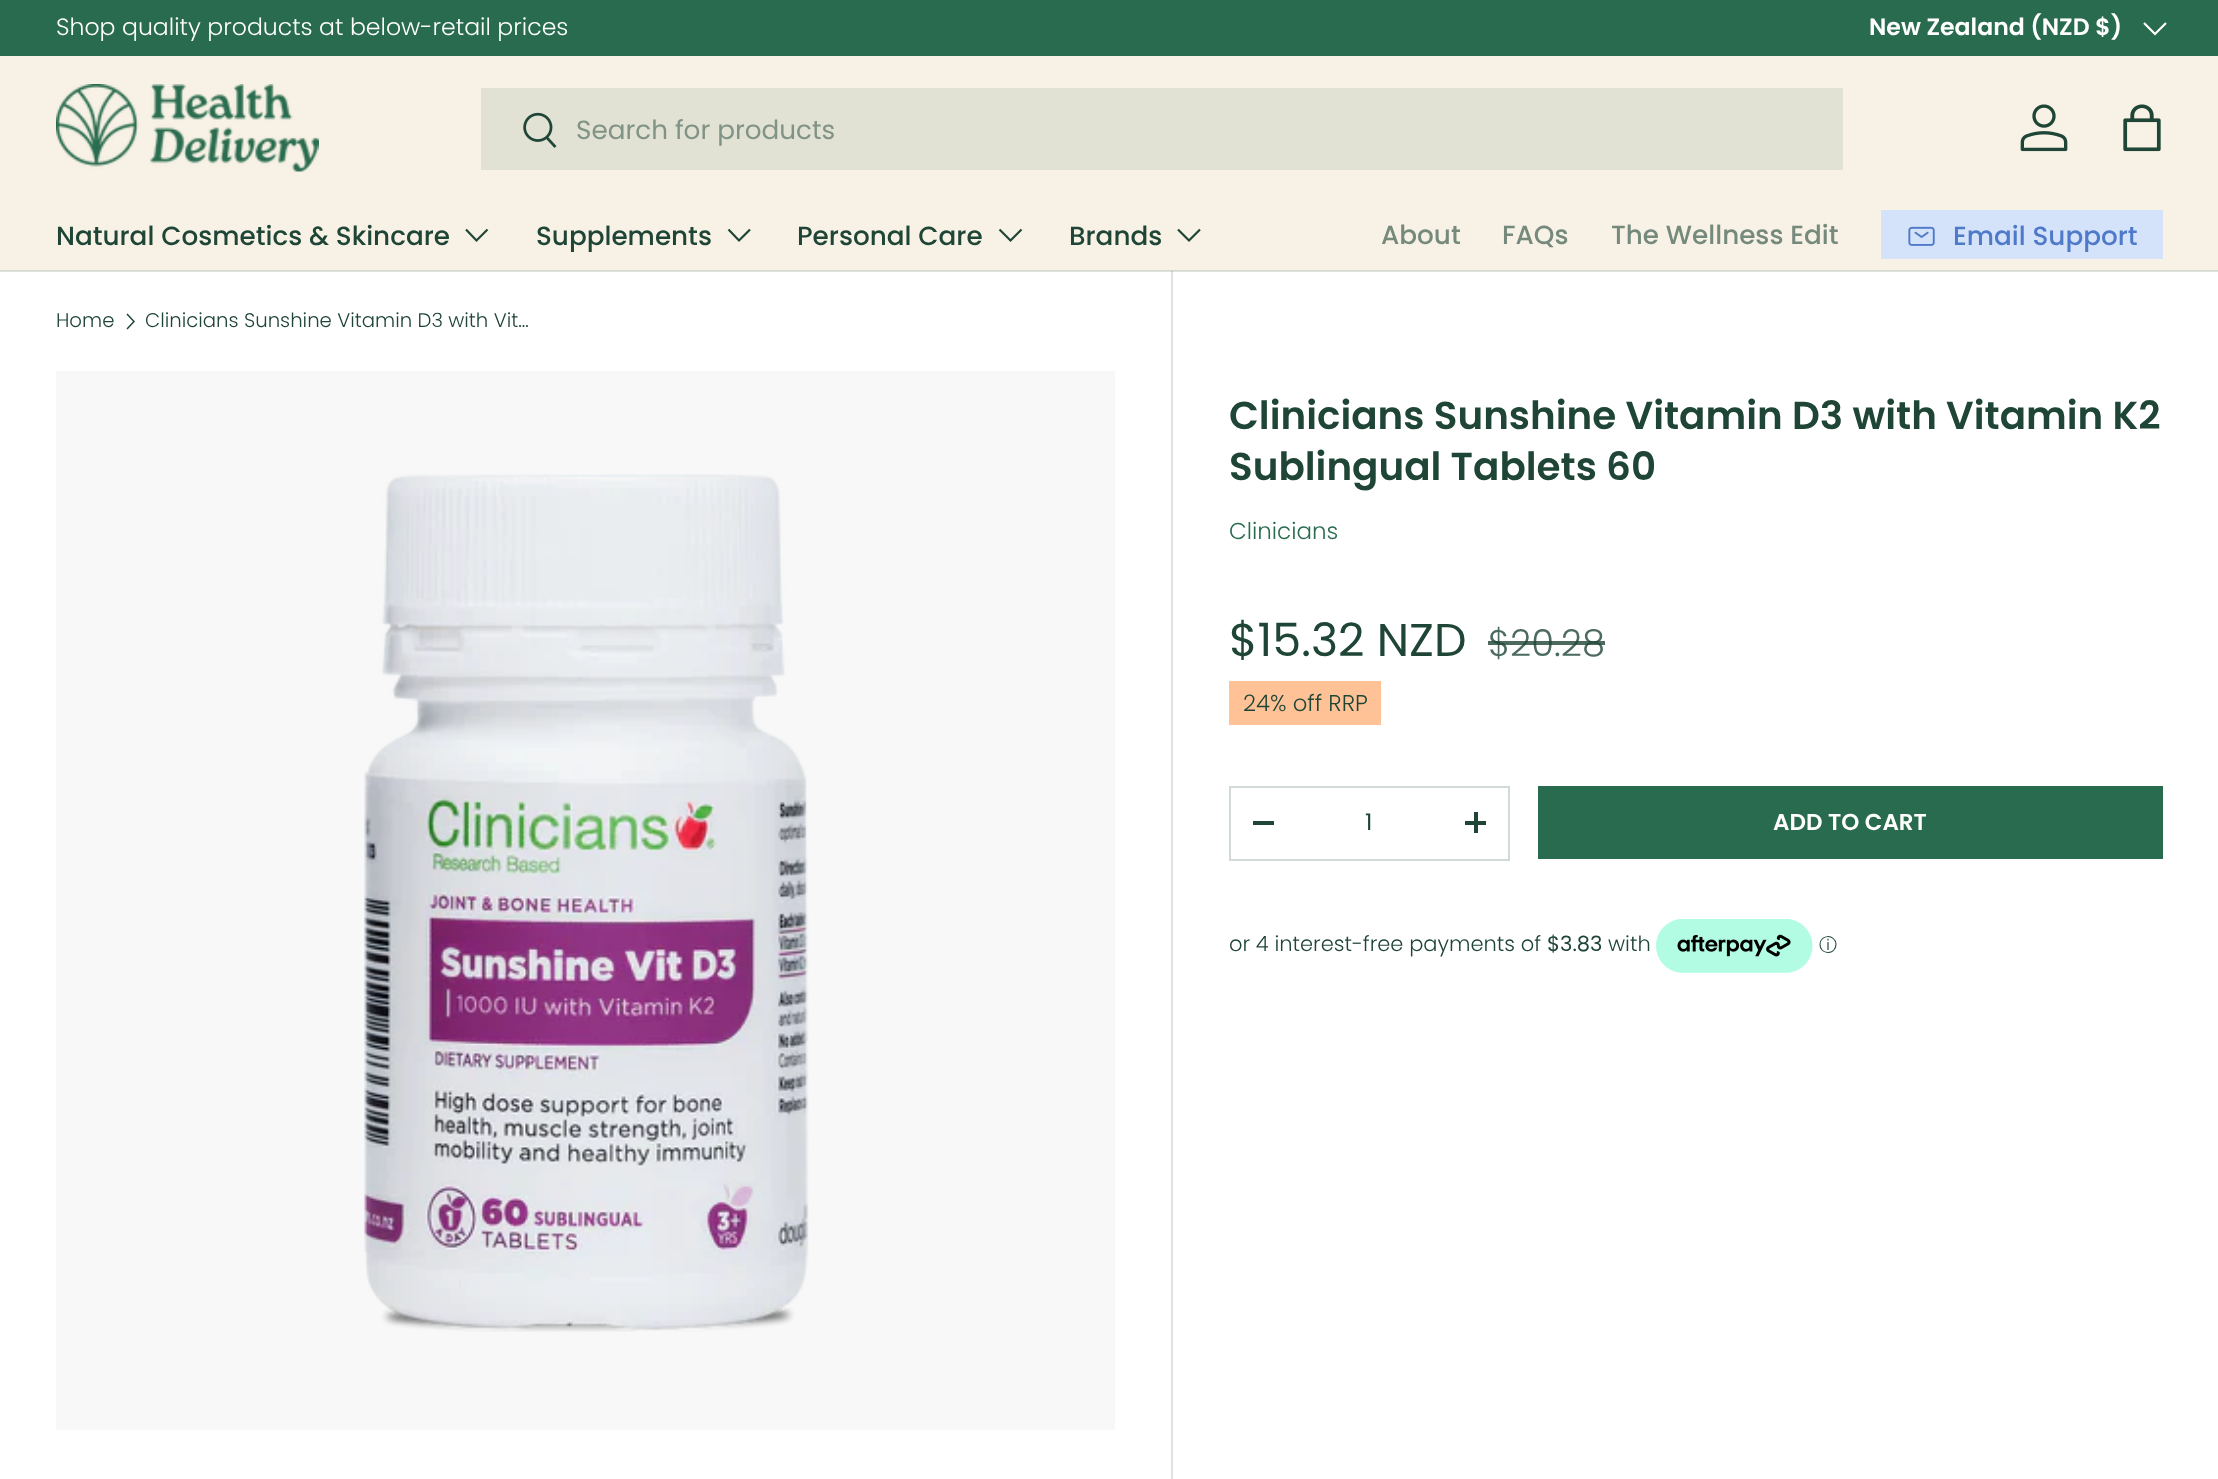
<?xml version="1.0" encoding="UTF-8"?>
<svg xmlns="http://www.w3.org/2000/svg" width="2218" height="1479">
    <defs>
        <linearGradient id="g1" gradientUnits="userSpaceOnUse" x1="1346" y1="135" x2="2142" y2="334"><stop offset="0.6" stop-color="#CDDCF5"/><stop offset="0.6" stop-color="#D4E3FA"/><stop offset="1" stop-color="#D4E3FA"/></linearGradient>
        <linearGradient id="g2" gradientUnits="userSpaceOnUse" x1="344" y1="602" x2="2115" y2="1043"><stop offset="0.6" stop-color="#4F8B71"/><stop offset="0.6" stop-color="#296B4F"/><stop offset="1" stop-color="#296B4F"/></linearGradient>
    </defs>
    <rect width="100%" height="100%" fill="#FFFFFF"/>
    <rect x="0" y="271" width="2218" height="1" fill="#DDE3E1"/>
    <rect x="0" y="0" width="2218" height="56" fill="#296B4F"/>
    <text x="56" y="35" font-family="Poppins" font-size="23.6" font-weight="300" fill="#FFFFFF">Shop quality products at below-retail prices</text>
    <text x="1869" y="35" font-family="Poppins" font-size="23.6" font-weight="600" fill="#FFFFFF">New Zealand (NZD $)</text>
    <path d="M 2166 23 L 2155 34 L 2144 23" fill="none" stroke="#FFFFFF" stroke-width="2.2"/>
    <rect x="0" y="56" width="2218" height="214" fill="#F7F2E5"/>
    <rect x="0" y="270" width="2218" height="1" fill="#D7D8CB"/>
    <image x="56" y="84" width="263" height="88" href="img_01.png"/>
    <rect x="481" y="88" width="1362" height="82" fill="#E1E1D4"/>
    <image x="523" y="112" width="34" height="36" href="img_02.png"/>
    <text x="576" y="139" font-family="Poppins" font-size="26.25" fill="#809385">Search for products</text>
    <image x="2020" y="104" width="48" height="48" href="img_03.png"/>
    <image x="2123" y="104" width="38" height="48" href="img_04.png"/>
    <text x="56" y="245" font-family="Poppins" font-size="26.25" font-weight="500" fill="#1F4536">Natural Cosmetics &amp; Skincare</text>
    <path d="M 487.5 229.5 L 476.5 240.5 L 466 229.5" fill="none" stroke="#1F4536" stroke-width="2.2"/>
    <text x="536" y="245" font-family="Poppins" font-size="26.25" font-weight="500" fill="#1F4536">Supplements</text>
    <path d="M 750 229.5 L 739 240.5 L 728.5 229.5" fill="none" stroke="#1F4536" stroke-width="2.2"/>
    <text x="797" y="245" font-family="Poppins" font-size="26.25" font-weight="500" fill="#1F4536">Personal Care</text>
    <path d="M 1021.5 229.5 L 1010.5 240.5 L 999.5 229.5" fill="none" stroke="#1F4536" stroke-width="2.2"/>
    <text x="1069" y="245" font-family="Poppins" font-size="26.25" font-weight="500" fill="#1F4536">Brands</text>
    <path d="M 1200 229.5 L 1189 240.5 L 1178 229.5" fill="none" stroke="#1F4536" stroke-width="2.2"/>
    <text x="1381" y="244" font-family="Poppins" font-size="26.25" font-weight="500" fill="#758A7C">About</text>
    <text x="1502" y="244" font-family="Poppins" font-size="26.25" font-weight="500" fill="#758A7C">FAQs</text>
    <text x="1611" y="244" font-family="Poppins" font-size="26.25" font-weight="500" fill="#758A7C">The Wellness Edit</text>
    <rect x="1883" y="212" width="278" height="45" fill="url(#g1)"/>
    <rect x="1882" y="211" width="280" height="47" fill="none" stroke="#D4E3FA" stroke-width="2"/>
    <image x="1908" y="226" width="27" height="20" href="img_05.png"/>
    <text x="1953" y="245" font-family="Poppins" font-size="26.25" font-weight="500" fill="#4F7AC9">Email Support</text>
    <text x="56" y="327" font-family="Poppins" font-size="19.7" font-weight="300" fill="#1F4536">Home</text>
    <path d="M 127 314 L 134 321.5 L 127 329" fill="none" stroke="#1F4536" stroke-width="1.5"/>
    <text x="145" y="327" font-family="Poppins" font-size="19.7" font-weight="300" fill="#1F4536">Clinicians Sunshine Vitamin D3 with Vit…</text>
    <rect x="56" y="371" width="1059" height="1059" fill="#F8F8F8"/>
    <image x="364" y="474" width="445" height="858" href="img_06.png"/>
    <rect x="1171" y="271" width="2" height="1208" fill="#DDE3E1"/>
    <rect x="1171" y="271" width="2" height="1" fill="#C1CBC7"/>
    <text font-family="Poppins" font-size="38.9" font-weight="600" fill="#1F4536">
        <tspan x="1229" y="429">Clinicians Sunshine Vitamin D3 with Vitamin K2</tspan>
        <tspan x="1229" y="480">Sublingual Tablets 60</tspan>
    </text>
    <text x="1229" y="539" font-family="Poppins" font-size="23" font-weight="300" fill="#296B4F">Clinicians</text>
    <text x="1229" y="656" font-family="Poppins" font-size="46" fill="#1F4536">$15.32 NZD</text>
    <text x="1488" y="656" font-family="Poppins" font-size="37" font-weight="300" fill="#4C6A5E">$20.28</text>
    <rect x="1488" y="641" width="117" height="4" fill="#1F4536" fill-opacity="0.8"/>
    <rect x="1229" y="681" width="152" height="44" fill="#FFC296"/>
    <text x="1243" y="711" font-family="Poppins" font-size="22.75" font-weight="300" fill="#1F4536">24% off RRP</text>
    <rect x="1230" y="787" width="279" height="73" fill="none" stroke="#D2DAD7" stroke-width="2"/>
    <rect x="1253" y="821" width="21" height="4" fill="#1F4536"/>
    <text x="1365" y="830" font-family="Poppins" font-size="23" fill="#1F4536">1</text>
    <rect x="1465" y="821" width="21" height="4" fill="#1F4536"/>
    <rect x="1474" y="812" width="4" height="21" fill="#1F4536"/>
    <rect x="1540" y="788" width="621" height="69" fill="url(#g2)"/>
    <rect x="1539" y="787" width="623" height="71" fill="none" stroke="#296B4F" stroke-width="2"/>
    <text x="1773" y="830" font-family="Poppins" font-size="23" font-weight="600" fill="#FFFFFF">ADD TO CART</text>
    <text x="1229" y="951" font-family="Poppins" font-size="21" font-weight="300" fill="#1F4536">or 4 interest-free payments of</text>
    <text x="1547" y="951" font-family="Poppins" font-size="21" fill="#1F4536">$3.83</text>
    <text x="1608" y="951" font-family="Poppins" font-size="21" font-weight="300" fill="#1F4536">with</text>
    <image x="1656" y="919" width="157" height="54" href="img_07.png"/>
    <text x="1819" y="951" font-family="WenQuanYi Zen Hei" font-size="18" font-weight="500" fill="#1F4536">ⓘ</text>
</svg>
